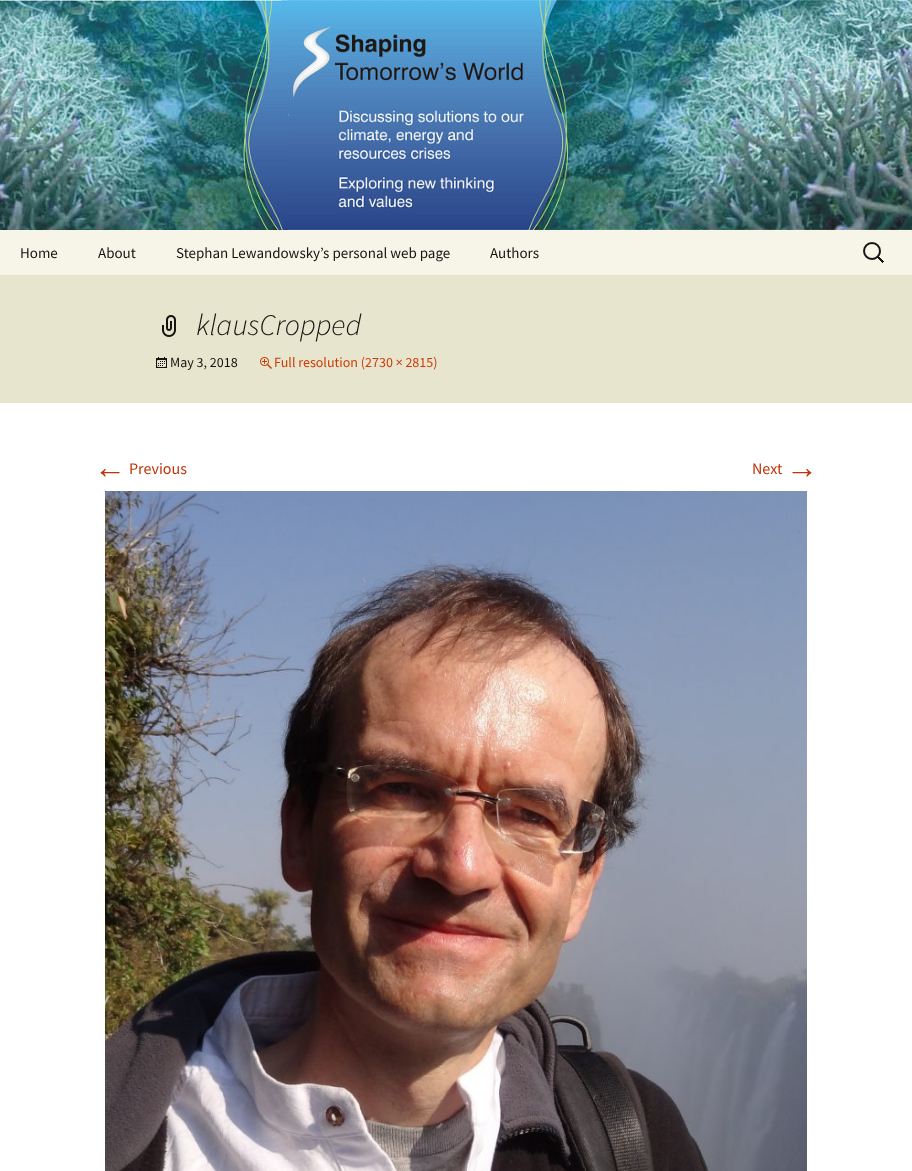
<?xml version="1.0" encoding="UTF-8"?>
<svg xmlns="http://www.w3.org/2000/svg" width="912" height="1171">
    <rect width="100%" height="100%" fill="#FFFFFF"/>
    <image x="0" y="0" width="912" height="230" href="img_01.png"/>
    <rect x="0" y="230" width="912" height="45" fill="#F7F5E7"/>
    <text x="20" y="258" font-family="Source Sans Pro" font-size="15" fill="#141412">Home</text>
    <text x="98" y="258" font-family="Source Sans Pro" font-size="15" fill="#141412">About</text>
    <text x="176" y="258" font-family="Source Sans Pro" font-size="15" fill="#141412">Stephan Lewandowsky’s personal web page</text>
    <text x="490" y="258" font-family="Source Sans Pro" font-size="15" fill="#141412">Authors</text>
    <image x="863" y="242" width="21" height="21" href="img_02.png"/>
    <rect x="0" y="275" width="912" height="128" fill="#E8E5CE"/>
    <image x="162" y="315" width="14" height="22" href="img_03.png"/>
    <text x="196" y="335" font-family="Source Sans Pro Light" font-size="30" font-weight="300" font-style="italic" fill="#141412">klausCropped</text>
    <image x="156" y="357" width="11" height="11" href="img_04.png"/>
    <text x="170" y="367" font-family="Source Sans Pro" font-size="14" fill="#141412">May 3, 2018</text>
    <image x="260" y="357" width="12" height="12" href="img_05.png"/>
    <text x="274" y="367" font-family="Source Sans Pro" font-size="14" fill="#CA3C08">Full resolution (2730 × 2815)</text>
    <text x="94" y="478" font-family="Liberation Sans" font-size="32" fill="#BC360A">←</text>
    <text x="129" y="474" font-family="Source Sans Pro" font-size="16" fill="#BC360A">Previous</text>
    <text x="752" y="474" font-family="Source Sans Pro" font-size="16" fill="#BC360A">Next</text>
    <text x="786" y="478" font-family="Liberation Sans" font-size="32" fill="#BC360A">→</text>
    <image x="105" y="491" width="702" height="680" href="img_06.png"/>
</svg>
